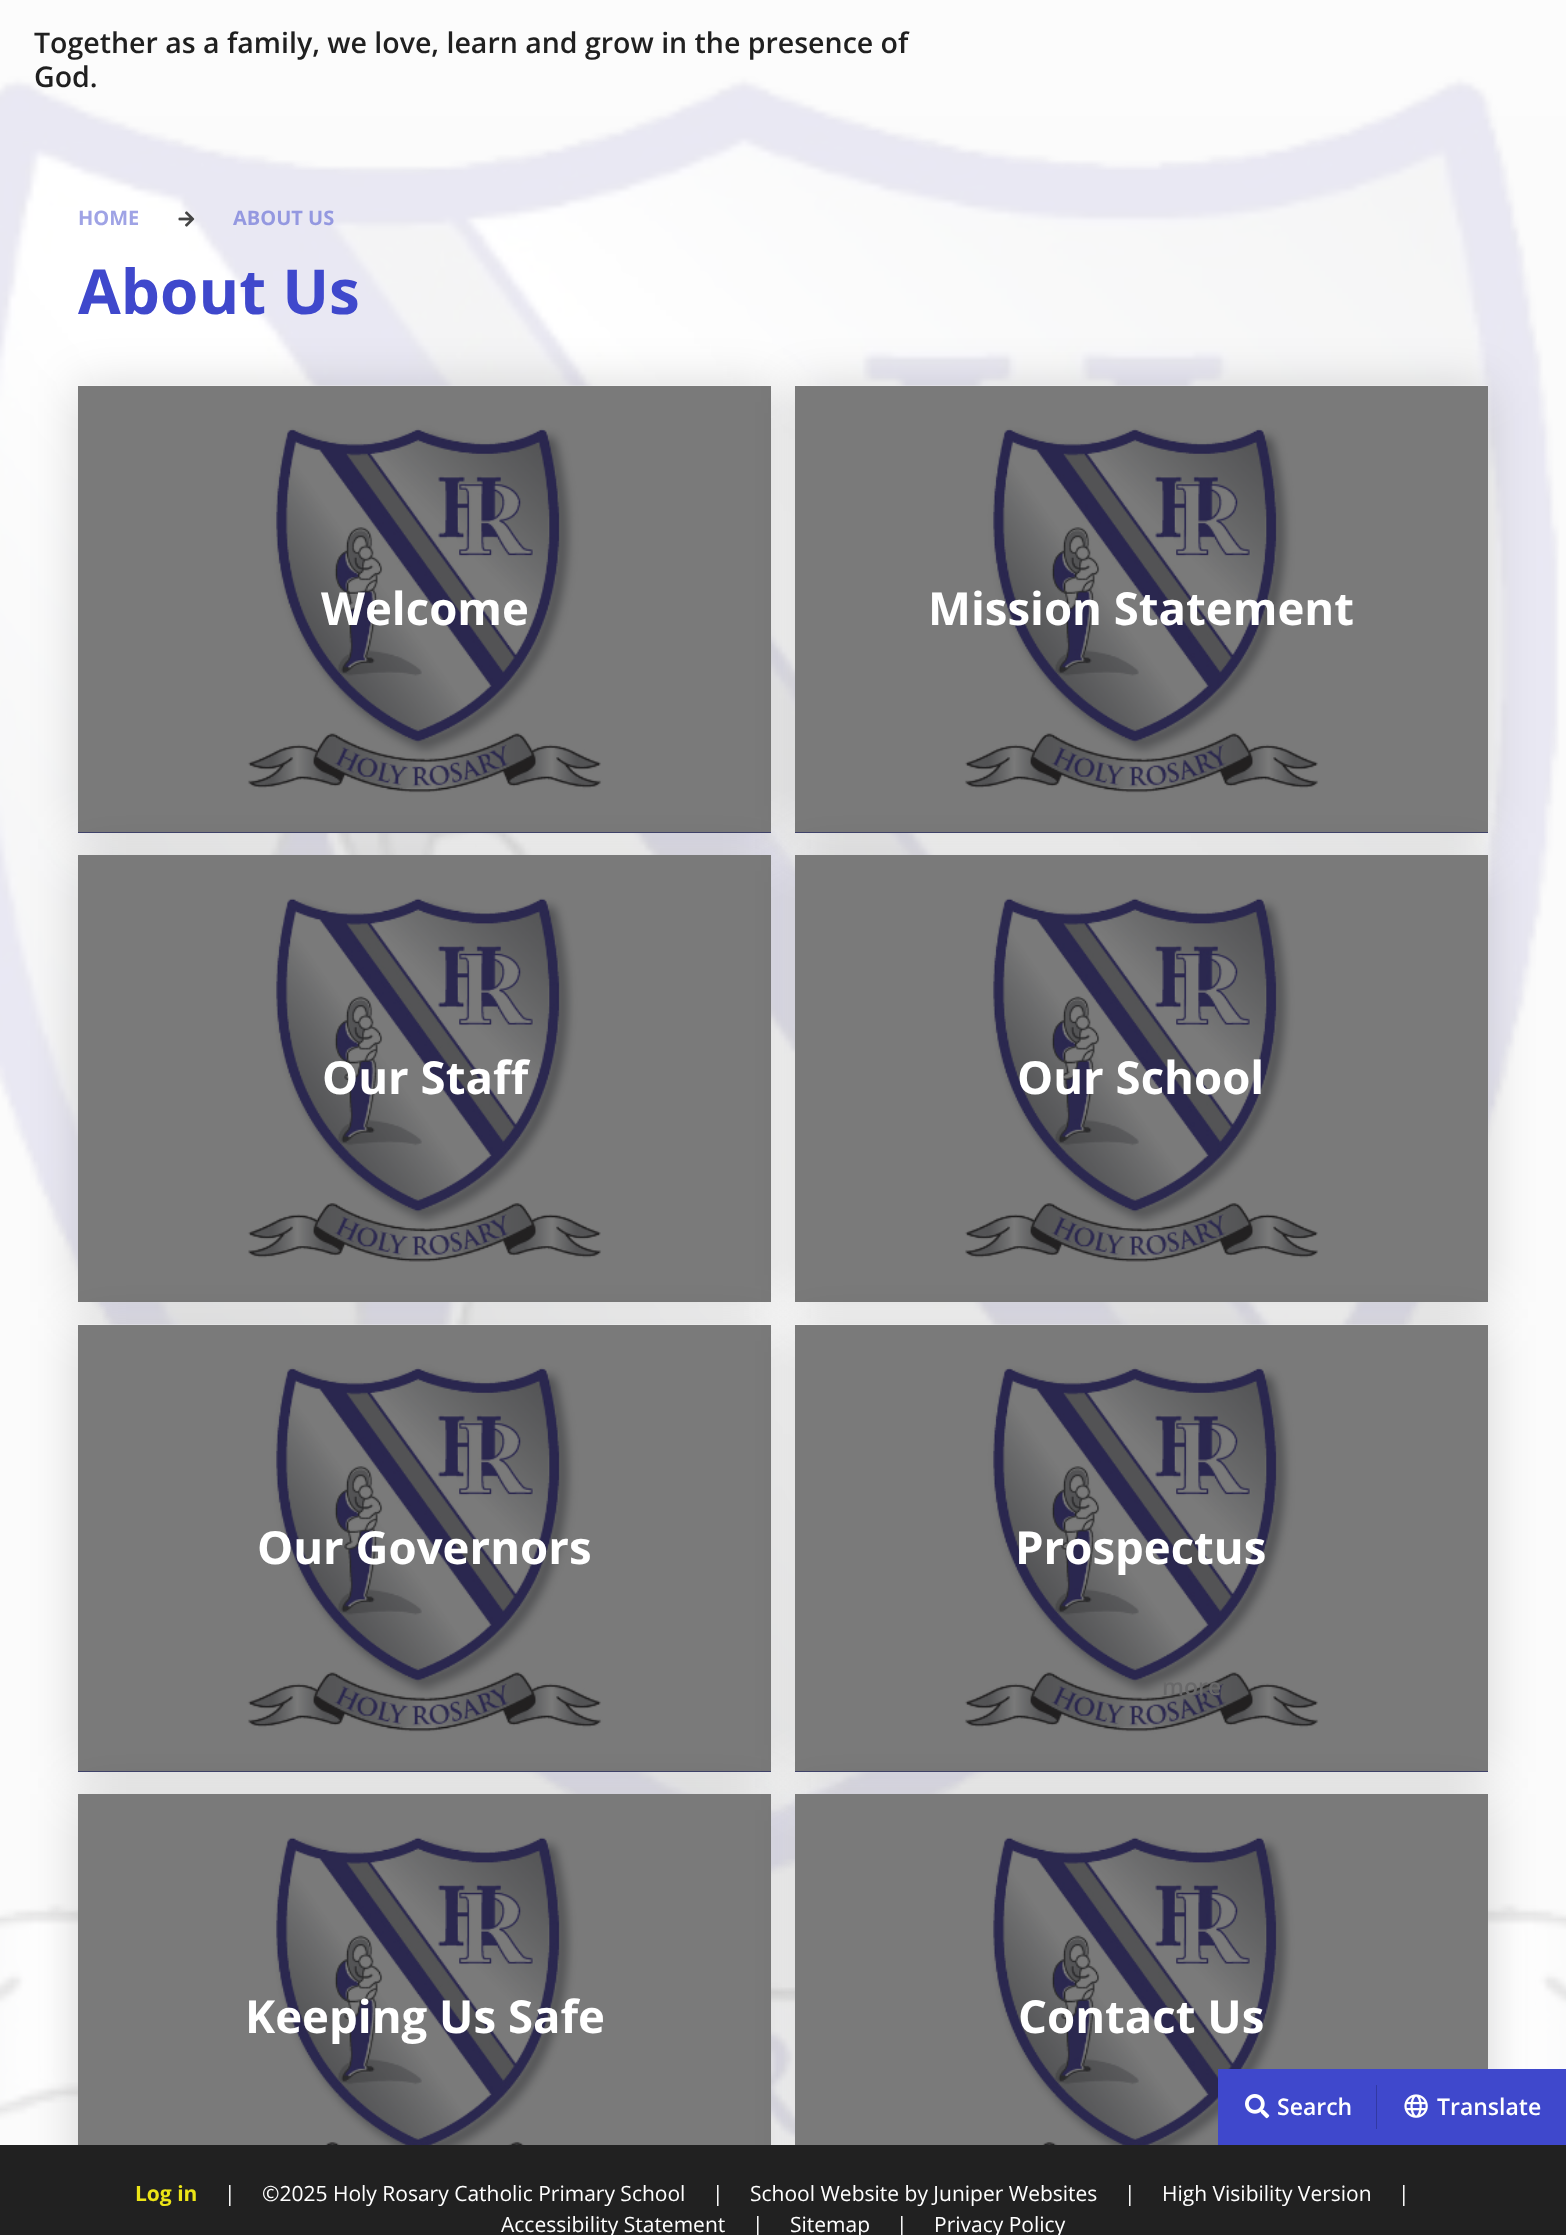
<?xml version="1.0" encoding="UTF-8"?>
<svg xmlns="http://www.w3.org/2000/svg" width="1566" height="2235">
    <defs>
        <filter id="blur1" x="-50%" y="-200%" width="200%" height="500%"><feGaussianBlur stdDeviation="24"/></filter>
    </defs>
    <rect width="100%" height="100%" fill="#DDDDDD"/>
    <rect x="0" y="116" width="1566" height="2029" fill="#FBFBFB"/>
    <image x="0" y="76" width="1566" height="2069" href="img_01.png"/>
    <rect x="0" y="0" width="1566" height="116" fill="#FFFFFF" fill-opacity="0.89"/>
    <text font-family="Open Sans" font-size="28.5" font-weight="600" fill="#202020">
        <tspan x="34" y="53">Together as a family, we love, learn and grow in the presence of</tspan>
        <tspan x="34" y="87">God.</tspan>
    </text>
    <text x="78" y="225" font-family="Open Sans" font-size="20" font-weight="700" fill="#9FA3E5">HOME</text>
    <image x="178" y="211" width="17" height="16" href="img_02.png"/>
    <text x="233" y="225" font-family="Open Sans" font-size="20" font-weight="700" fill="#9498E0">ABOUT US</text>
    <text x="78" y="314" font-family="Open Sans" font-size="62" font-weight="700" fill="#3F48CC">About Us</text>
    <rect x="78" y="386" width="693" height="447" fill="#222222" fill-opacity="0.15" filter="url(#blur1)"/>
    <rect x="78" y="832" width="693" height="1" fill="#3F48CC"/>
    <image x="78" y="385" width="693" height="448" href="img_03.png"/>
    <rect x="78" y="386" width="693" height="447" fill="#222222" fill-opacity="0.6"/>
    <text x="321" y="625" font-family="Open Sans" font-size="45.5" font-weight="700" fill="#FFFFFF">Welcome</text>
    <rect x="795" y="386" width="693" height="447" fill="#222222" fill-opacity="0.15" filter="url(#blur1)"/>
    <rect x="795" y="832" width="693" height="1" fill="#3F48CC"/>
    <image x="795" y="385" width="693" height="448" href="img_04.png"/>
    <rect x="795" y="386" width="693" height="447" fill="#222222" fill-opacity="0.6"/>
    <text x="928" y="625" font-family="Open Sans" font-size="45.5" font-weight="700" fill="#FFFFFF">Mission Statement</text>
    <rect x="78" y="855" width="693" height="447" fill="#222222" fill-opacity="0.15" filter="url(#blur1)"/>
    <image x="78" y="855" width="693" height="447" href="img_05.png"/>
    <text x="322" y="1094" font-family="Open Sans" font-size="45.5" font-weight="700" fill="#FFFFFF">Our Staff</text>
    <rect x="795" y="855" width="693" height="447" fill="#222222" fill-opacity="0.15" filter="url(#blur1)"/>
    <image x="795" y="855" width="693" height="447" href="img_05.png"/>
    <text x="1017" y="1094" font-family="Open Sans" font-size="45.5" font-weight="700" fill="#FFFFFF">Our School</text>
    <rect x="78" y="1325" width="693" height="447" fill="#222222" fill-opacity="0.15" filter="url(#blur1)"/>
    <rect x="78" y="1771" width="693" height="1" fill="#3F48CC"/>
    <image x="78" y="1324" width="693" height="448" href="img_06.png"/>
    <rect x="78" y="1325" width="693" height="447" fill="#222222" fill-opacity="0.6"/>
    <text x="257" y="1564" font-family="Open Sans" font-size="45.5" font-weight="700" fill="#FFFFFF">Our Governors</text>
    <rect x="795" y="1325" width="693" height="447" fill="#222222" fill-opacity="0.15" filter="url(#blur1)"/>
    <rect x="795" y="1771" width="693" height="1" fill="#3F48CC"/>
    <image x="795" y="1324" width="693" height="448" href="img_07.png"/>
    <rect x="795" y="1325" width="693" height="447" fill="#222222" fill-opacity="0.6"/>
    <text x="1015" y="1564" font-family="Open Sans" font-size="45.5" font-weight="700" fill="#FFFFFF">Prospectus</text>
    <text x="1162" y="1695" font-family="Open Sans" font-size="23" font-weight="600" fill="#686869">more</text>
    <rect x="78" y="1794" width="693" height="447" fill="#222222" fill-opacity="0.15" filter="url(#blur1)"/>
    <image x="78" y="1794" width="693" height="351" href="img_08.png"/>
    <text x="245" y="2033" font-family="Open Sans" font-size="45.5" font-weight="700" fill="#FFFFFF">Keeping Us Safe</text>
    <rect x="795" y="1794" width="693" height="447" fill="#222222" fill-opacity="0.15" filter="url(#blur1)"/>
    <image x="795" y="1794" width="693" height="351" href="img_08.png"/>
    <text x="1018" y="2033" font-family="Open Sans" font-size="45.5" font-weight="700" fill="#FFFFFF">Contact Us</text>
    <rect x="1218" y="2069" width="348" height="76" fill="#3F48CC"/>
    <image x="1245" y="2094" width="25" height="25" href="img_09.png"/>
    <text x="1277" y="2115" font-family="Open Sans" font-size="23" font-weight="600" fill="#FFFFFF">Search</text>
    <rect x="1376" y="2085" width="1" height="44" fill="#000000" fill-opacity="0.2"/>
    <image x="1404" y="2094" width="24" height="24" href="img_10.png"/>
    <text x="1437" y="2115" font-family="Open Sans" font-size="23" font-weight="600" fill="#FFFFFF">Translate</text>
    <rect x="0" y="2145" width="1566" height="90" fill="#212121"/>
    <text x="135" y="2201" font-family="Open Sans" font-size="21" font-weight="700" fill="#ECE517">Log in</text>
    <text x="224" y="2201" font-family="Open Sans" font-size="21" fill="#FFFFFF">|</text>
    <text x="262" y="2201" font-family="Open Sans" font-size="21" fill="#FFFFFF">©2025 Holy Rosary Catholic Primary School</text>
    <text x="712" y="2201" font-family="Open Sans" font-size="21" fill="#FFFFFF">|</text>
    <text x="750" y="2201" font-family="Open Sans" font-size="21" fill="#FFFFFF">School Website by Juniper Websites</text>
    <text x="1124" y="2201" font-family="Open Sans" font-size="21" fill="#FFFFFF">|</text>
    <text x="1162" y="2201" font-family="Open Sans" font-size="21" fill="#FFFFFF">High Visibility Version</text>
    <text x="1398" y="2201" font-family="Open Sans" font-size="21" fill="#FFFFFF">|</text>
    <text x="501" y="2232" font-family="Open Sans" font-size="21" fill="#FFFFFF">Accessibility Statement</text>
    <text x="752" y="2232" font-family="Open Sans" font-size="21" fill="#FFFFFF">|</text>
    <text x="790" y="2232" font-family="Open Sans" font-size="21" fill="#FFFFFF">Sitemap</text>
    <text x="896" y="2232" font-family="Open Sans" font-size="21" fill="#FFFFFF">|</text>
    <text x="934" y="2232" font-family="Open Sans" font-size="21" fill="#FFFFFF">Privacy Policy</text>
</svg>
